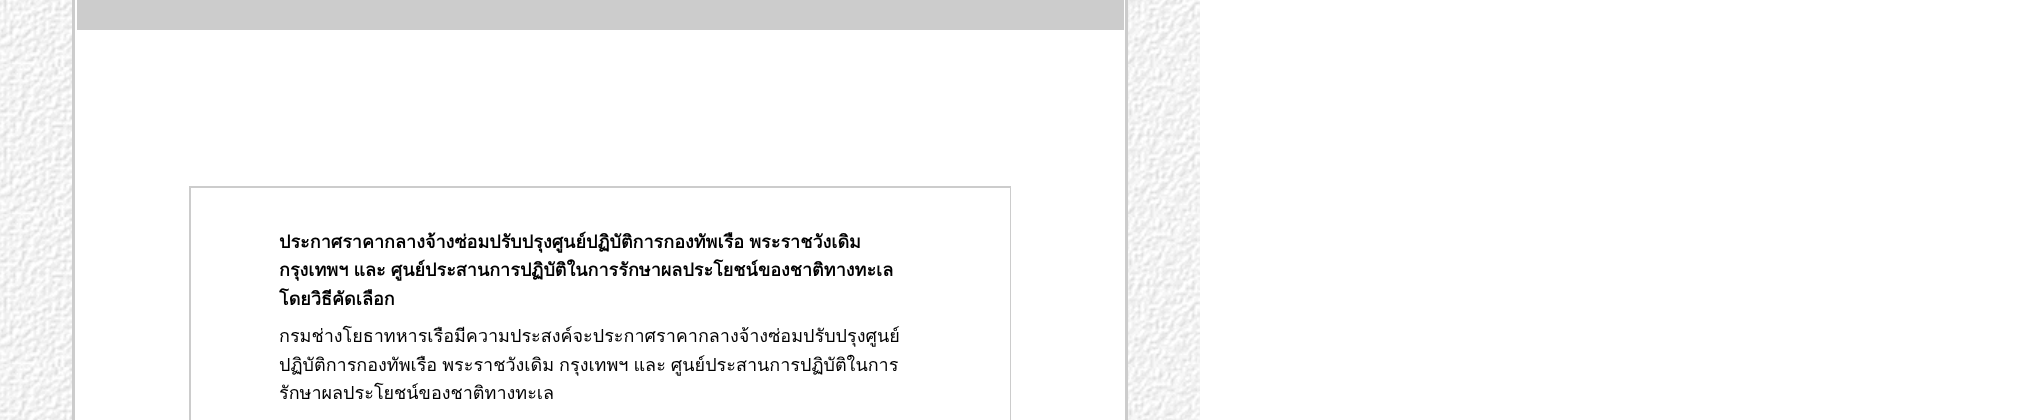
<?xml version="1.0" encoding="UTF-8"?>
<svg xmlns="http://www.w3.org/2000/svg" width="2022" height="420">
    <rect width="100%" height="100%" fill="#FFFFFF"/>
    <image x="0" y="0" width="1200" height="420" href="img_01.png"/>
    <rect x="72" y="0" width="1056" height="420" fill="#CCCCCC"/>
    <rect x="75" y="0" width="1050" height="420" fill="#FFFFFF"/>
    <rect x="77" y="0" width="1047" height="30" fill="#CCCCCC"/>
    <rect x="189" y="186" width="822" height="234" fill="#CCCCCC"/>
    <rect x="191" y="188" width="819" height="232" fill="#FFFFFF"/>
    <text font-family="Loma" font-size="18" font-weight="700" fill="#000000">
        <tspan x="279" y="248" word-spacing="-1">ประกาศราคากลางจ้างซ่อมปรับปรุงศูนย์ปฏิบัติการกองทัพเรือ พระราชวังเดิม</tspan>
        <tspan x="279" y="276" word-spacing="-1">กรุงเทพฯ และ ศูนย์ประสานการปฏิบัติในการรักษาผลประโยชน์ของชาติทางทะเล</tspan>
        <tspan x="279" y="305">โดยวิธีคัดเลือก</tspan>
    </text>
    <text font-family="Loma" font-size="18" fill="#000000">
        <tspan x="279" y="342">กรมช่างโยธาทหารเรือมีความประสงค์จะประกาศราคากลางจ้างซ่อมปรับปรุงศูนย์</tspan>
        <tspan x="279" y="371" word-spacing="-1">ปฏิบัติการกองทัพเรือ พระราชวังเดิม กรุงเทพฯ และ ศูนย์ประสานการปฏิบัติในการ</tspan>
        <tspan x="279" y="399">รักษาผลประโยชน์ของชาติทางทะเล</tspan>
    </text>
</svg>
